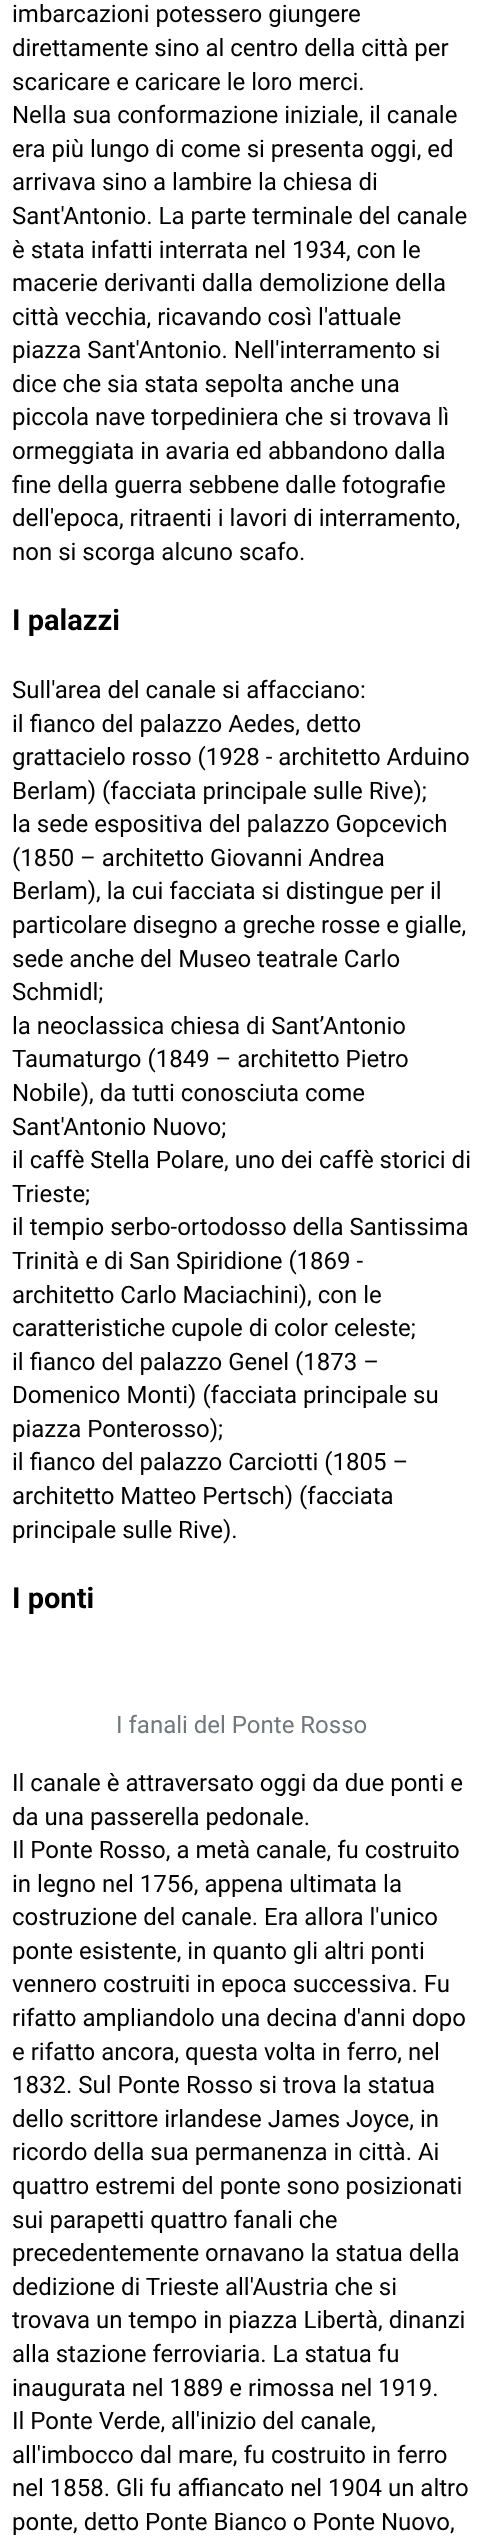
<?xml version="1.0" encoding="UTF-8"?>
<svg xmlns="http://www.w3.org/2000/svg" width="482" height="2540">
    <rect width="100%" height="100%" fill="#FFFFFF"/>
    <text font-family="Roboto" font-size="24" fill="#000000">
        <tspan x="12" y="22">imbarcazioni potessero giungere</tspan>
        <tspan x="12" y="56">direttamente sino al centro della città per</tspan>
        <tspan x="12" y="90">scaricare e caricare le loro merci.</tspan>
        <tspan x="12" y="123">Nella sua conformazione iniziale, il canale</tspan>
        <tspan x="12" y="157">era più lungo di come si presenta oggi, ed</tspan>
        <tspan x="12" y="190">arrivava sino a lambire la chiesa di</tspan>
        <tspan x="12" y="224">Sant'Antonio. La parte terminale del canale</tspan>
        <tspan x="12" y="258">è stata infatti interrata nel 1934, con le</tspan>
        <tspan x="12" y="291">macerie derivanti dalla demolizione della</tspan>
        <tspan x="12" y="325">città vecchia, ricavando così l'attuale</tspan>
        <tspan x="12" y="358">piazza Sant'Antonio. Nell'interramento si</tspan>
        <tspan x="12" y="392">dice che sia stata sepolta anche una</tspan>
        <tspan x="12" y="425">piccola nave torpediniera che si trovava lì</tspan>
        <tspan x="12" y="459">ormeggiata in avaria ed abbandono dalla</tspan>
        <tspan x="12" y="493">fine della guerra sebbene dalle fotografie</tspan>
        <tspan x="12" y="526">dell'epoca, ritraenti i lavori di interramento,</tspan>
        <tspan x="12" y="560">non si scorga alcuno scafo.</tspan>
    </text>
    <text x="12" y="630" font-family="Roboto" font-size="29" font-weight="700" fill="#000000">I palazzi</text>
    <text font-family="Roboto" font-size="24" fill="#000000">
        <tspan x="12" y="698">Sull'area del canale si affacciano:</tspan>
        <tspan x="12" y="732">il fianco del palazzo Aedes, detto</tspan>
        <tspan x="12" y="765">grattacielo rosso (1928 - architetto Arduino</tspan>
        <tspan x="12" y="799">Berlam) (facciata principale sulle Rive);</tspan>
        <tspan x="12" y="832">la sede espositiva del palazzo Gopcevich</tspan>
        <tspan x="12" y="866">(1850 – architetto Giovanni Andrea</tspan>
        <tspan x="12" y="899">Berlam), la cui facciata si distingue per il</tspan>
        <tspan x="12" y="933">particolare disegno a greche rosse e gialle,</tspan>
        <tspan x="12" y="967">sede anche del Museo teatrale Carlo</tspan>
        <tspan x="12" y="1000">Schmidl;</tspan>
        <tspan x="12" y="1034">la neoclassica chiesa di Sant’Antonio</tspan>
        <tspan x="12" y="1067">Taumaturgo (1849 – architetto Pietro</tspan>
        <tspan x="12" y="1101">Nobile), da tutti conosciuta come</tspan>
        <tspan x="12" y="1135">Sant'Antonio Nuovo;</tspan>
        <tspan x="12" y="1168">il caffè Stella Polare, uno dei caffè storici di</tspan>
        <tspan x="12" y="1202">Trieste;</tspan>
        <tspan x="12" y="1235">il tempio serbo-ortodosso della Santissima</tspan>
        <tspan x="12" y="1269">Trinità e di San Spiridione (1869 -</tspan>
        <tspan x="12" y="1303">architetto Carlo Maciachini), con le</tspan>
        <tspan x="12" y="1336">caratteristiche cupole di color celeste;</tspan>
        <tspan x="12" y="1370">il fianco del palazzo Genel (1873 –</tspan>
        <tspan x="12" y="1403">Domenico Monti) (facciata principale su</tspan>
        <tspan x="12" y="1437">piazza Ponterosso);</tspan>
        <tspan x="12" y="1470">il fianco del palazzo Carciotti (1805 –</tspan>
        <tspan x="12" y="1504">architetto Matteo Pertsch) (facciata</tspan>
        <tspan x="12" y="1538">principale sulle Rive).</tspan>
    </text>
    <text x="12" y="1608" font-family="Roboto" font-size="29" font-weight="700" fill="#000000">I ponti</text>
    <text x="116" y="1733" font-family="Roboto" font-size="24" fill="#72777D">I fanali del Ponte Rosso</text>
    <text font-family="Roboto" font-size="24" fill="#000000">
        <tspan x="12" y="1791">Il canale è attraversato oggi da due ponti e</tspan>
        <tspan x="12" y="1825">da una passerella pedonale.</tspan>
        <tspan x="12" y="1858">Il Ponte Rosso, a metà canale, fu costruito</tspan>
        <tspan x="12" y="1892">in legno nel 1756, appena ultimata la</tspan>
        <tspan x="12" y="1925">costruzione del canale. Era allora l'unico</tspan>
        <tspan x="12" y="1959">ponte esistente, in quanto gli altri ponti</tspan>
        <tspan x="12" y="1992">vennero costruiti in epoca successiva. Fu</tspan>
        <tspan x="12" y="2026">rifatto ampliandolo una decina d'anni dopo</tspan>
        <tspan x="12" y="2060">e rifatto ancora, questa volta in ferro, nel</tspan>
        <tspan x="12" y="2093">1832. Sul Ponte Rosso si trova la statua</tspan>
        <tspan x="12" y="2127">dello scrittore irlandese James Joyce, in</tspan>
        <tspan x="12" y="2160">ricordo della sua permanenza in città. Ai</tspan>
        <tspan x="12" y="2194">quattro estremi del ponte sono posizionati</tspan>
        <tspan x="12" y="2228">sui parapetti quattro fanali che</tspan>
        <tspan x="12" y="2261">precedentemente ornavano la statua della</tspan>
        <tspan x="12" y="2295">dedizione di Trieste all'Austria che si</tspan>
        <tspan x="12" y="2328">trovava un tempo in piazza Libertà, dinanzi</tspan>
        <tspan x="12" y="2362">alla stazione ferroviaria. La statua fu</tspan>
        <tspan x="12" y="2396">inaugurata nel 1889 e rimossa nel 1919.</tspan>
        <tspan x="12" y="2429">Il Ponte Verde, all'inizio del canale,</tspan>
        <tspan x="12" y="2463">all'imbocco dal mare, fu costruito in ferro</tspan>
        <tspan x="12" y="2496">nel 1858. Gli fu affiancato nel 1904 un altro</tspan>
        <tspan x="12" y="2530">ponte, detto Ponte Bianco o Ponte Nuovo,</tspan>
    </text>
</svg>
